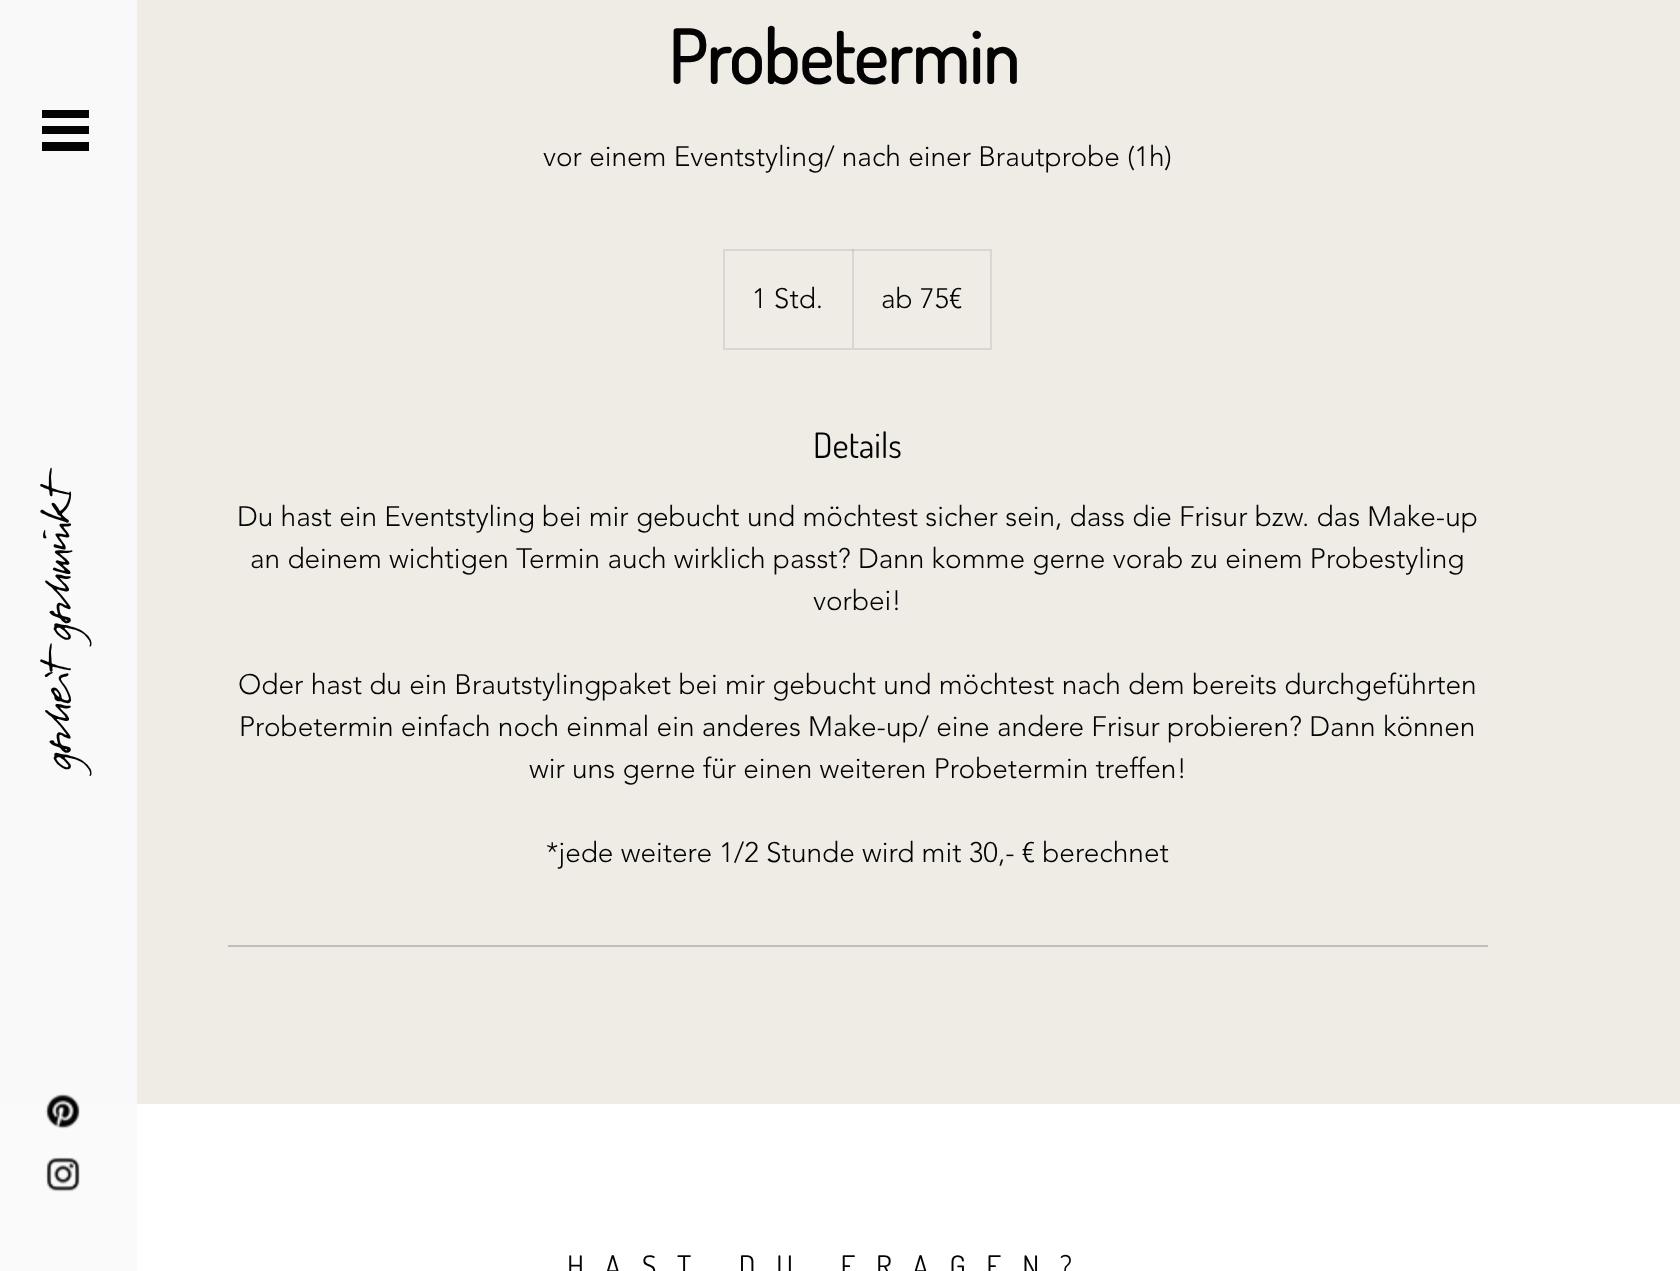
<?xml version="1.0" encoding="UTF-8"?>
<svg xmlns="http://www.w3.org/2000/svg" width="1680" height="1271">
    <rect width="100%" height="100%" fill="#EFEBE5"/>
    <rect x="0" y="0" width="137" height="1104" fill="#F9F9F9"/>
    <rect x="42" y="110" width="47" height="8" fill="#030303"/>
    <rect x="42" y="126" width="47" height="8" fill="#030303"/>
    <rect x="42" y="142" width="47" height="9" fill="#030303"/>
    <text x="668" y="84" font-family="Dosis" font-size="73.5" font-weight="700" fill="#030303">Probetermin</text>
    <text x="543" y="166" font-family="'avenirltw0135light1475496'" font-size="28" font-weight="300" fill="#030303">vor einem Eventstyling/ nach einer Brautprobe (1h)</text>
    <rect x="724" y="250" width="267" height="99" fill="none" stroke="#DAD6D1" stroke-width="2"/>
    <text x="752" y="308" font-family="'avenirltw0135light1475496'" font-size="28" font-weight="300" fill="#030303">1 Std.</text>
    <path d="M 852 348 V 248 L 854 250 V 348 Z" fill="#030303" fill-opacity="0.09"/>
    <text x="881" y="308" font-family="'avenirltw0135light1475496'" font-size="28" font-weight="300" fill="#030303">ab 75€</text>
    <text x="813" y="458" font-family="Dosis" font-size="35" fill="#030303">Details</text>
    <text x="237" y="526" font-family="'avenirltw0135light1475496'" font-size="28" font-weight="300" fill="#030303">Du hast ein Eventstyling bei mir gebucht und möchtest sicher sein, dass die Frisur bzw. das Make-up</text>
    <text x="250" y="568" font-family="'avenirltw0135light1475496'" font-size="28" font-weight="300" fill="#030303">an deinem wichtigen Termin auch wirklich passt? Dann komme gerne vorab zu einem Probestyling</text>
    <text x="813" y="610" font-family="'avenirltw0135light1475496'" font-size="28" font-weight="300" fill="#030303">vorbei!</text>
    <text x="238" y="694" font-family="'avenirltw0135light1475496'" font-size="28" font-weight="300" fill="#030303">Oder hast du ein Brautstylingpaket bei mir gebucht und möchtest nach dem bereits durchgeführten</text>
    <text x="239" y="736" font-family="'avenirltw0135light1475496'" font-size="28" font-weight="300" fill="#030303">Probetermin einfach noch einmal ein anderes Make-up/ eine andere Frisur probieren? Dann können</text>
    <text x="529" y="778" font-family="'avenirltw0135light1475496'" font-size="28" font-weight="300" fill="#030303">wir uns gerne für einen weiteren Probetermin treffen!</text>
    <text x="546" y="862" font-family="'avenirltw0135light1475496'" font-size="28" font-weight="300" fill="#030303">*jede weitere 1/2 Stunde wird mit 30,- € berechnet</text>
    <rect x="228" y="945" width="1260" height="2" fill="#C0BDB8"/>
    <text x="71" y="770" transform="rotate(-90 71 770)" font-family="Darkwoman" font-size="56" fill="#030303">gscheit gschminkt</text>
    <rect x="0" y="1104" width="137" height="167" fill="#FAFAFA"/>
    <image x="45" y="1093" width="35" height="36" href="img_01.png"/>
    <image x="46" y="1157" width="34" height="35" href="img_02.png"/>
    <rect x="137" y="1104" width="1543" height="167" fill="#FFFFFF"/>
    <text x="567" y="1277" font-family="Dosis" font-size="29.75" letter-spacing="20.8" fill="#030303">HAST DU FRAGEN?</text>
</svg>
